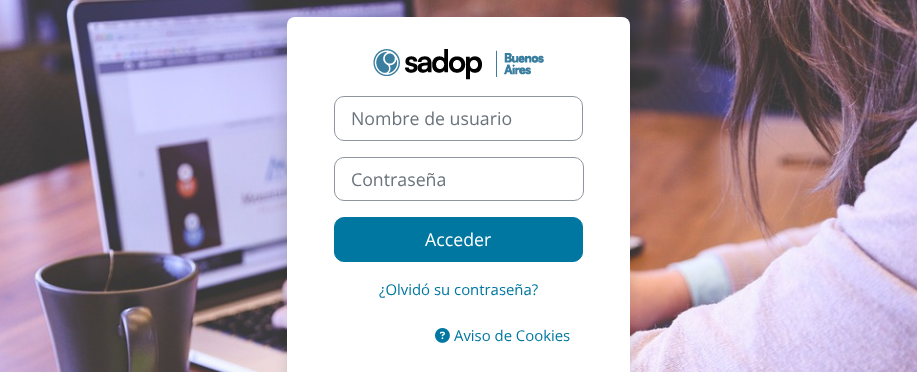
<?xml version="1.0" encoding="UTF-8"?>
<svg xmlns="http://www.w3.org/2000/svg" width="917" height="372">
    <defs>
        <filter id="blur1" x="-50%" y="-200%" width="200%" height="500%"><feGaussianBlur stdDeviation="8"/></filter>
    </defs>
    <rect width="100%" height="100%" fill="#FFFFFF"/>
    <image x="0" y="0" width="917" height="372" href="img_01.png"/>
    <rect x="287" y="25" width="343" height="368" rx="8" fill="#000000" fill-opacity="0.15" filter="url(#blur1)"/>
    <rect x="287" y="17" width="343" height="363" rx="8" fill="#FFFFFF"/>
    <image x="373" y="49" width="171" height="31" href="img_02.png"/>
    <rect x="334.5" y="96.5" width="248" height="44" rx="9.5" fill="none" stroke="#8F959E"/>
    <text x="351" y="125" font-family="Open Sans" font-size="17.75" fill="#6A737B">Nombre de usuario</text>
    <rect x="334.5" y="157.5" width="249" height="43" rx="9.5" fill="none" stroke="#8F959E"/>
    <text x="351" y="186" font-family="Open Sans" font-size="17.75" fill="#6A737B">Contraseña</text>
    <rect x="334.5" y="217.5" width="248" height="44" rx="9.5" fill="#0077A0" stroke="#0077A0"/>
    <text x="425" y="246" font-family="Open Sans" font-size="17.75" fill="#FFFFFF">Acceder</text>
    <text x="379" y="295" font-family="Open Sans" font-size="14.9" fill="#0077A0">¿Olvidó su contraseña?</text>
    <image x="435" y="328" width="15" height="15" href="img_03.png"/>
    <text x="454" y="341" font-family="Open Sans" font-size="14.9" fill="#0077A0">Aviso de Cookies</text>
</svg>
